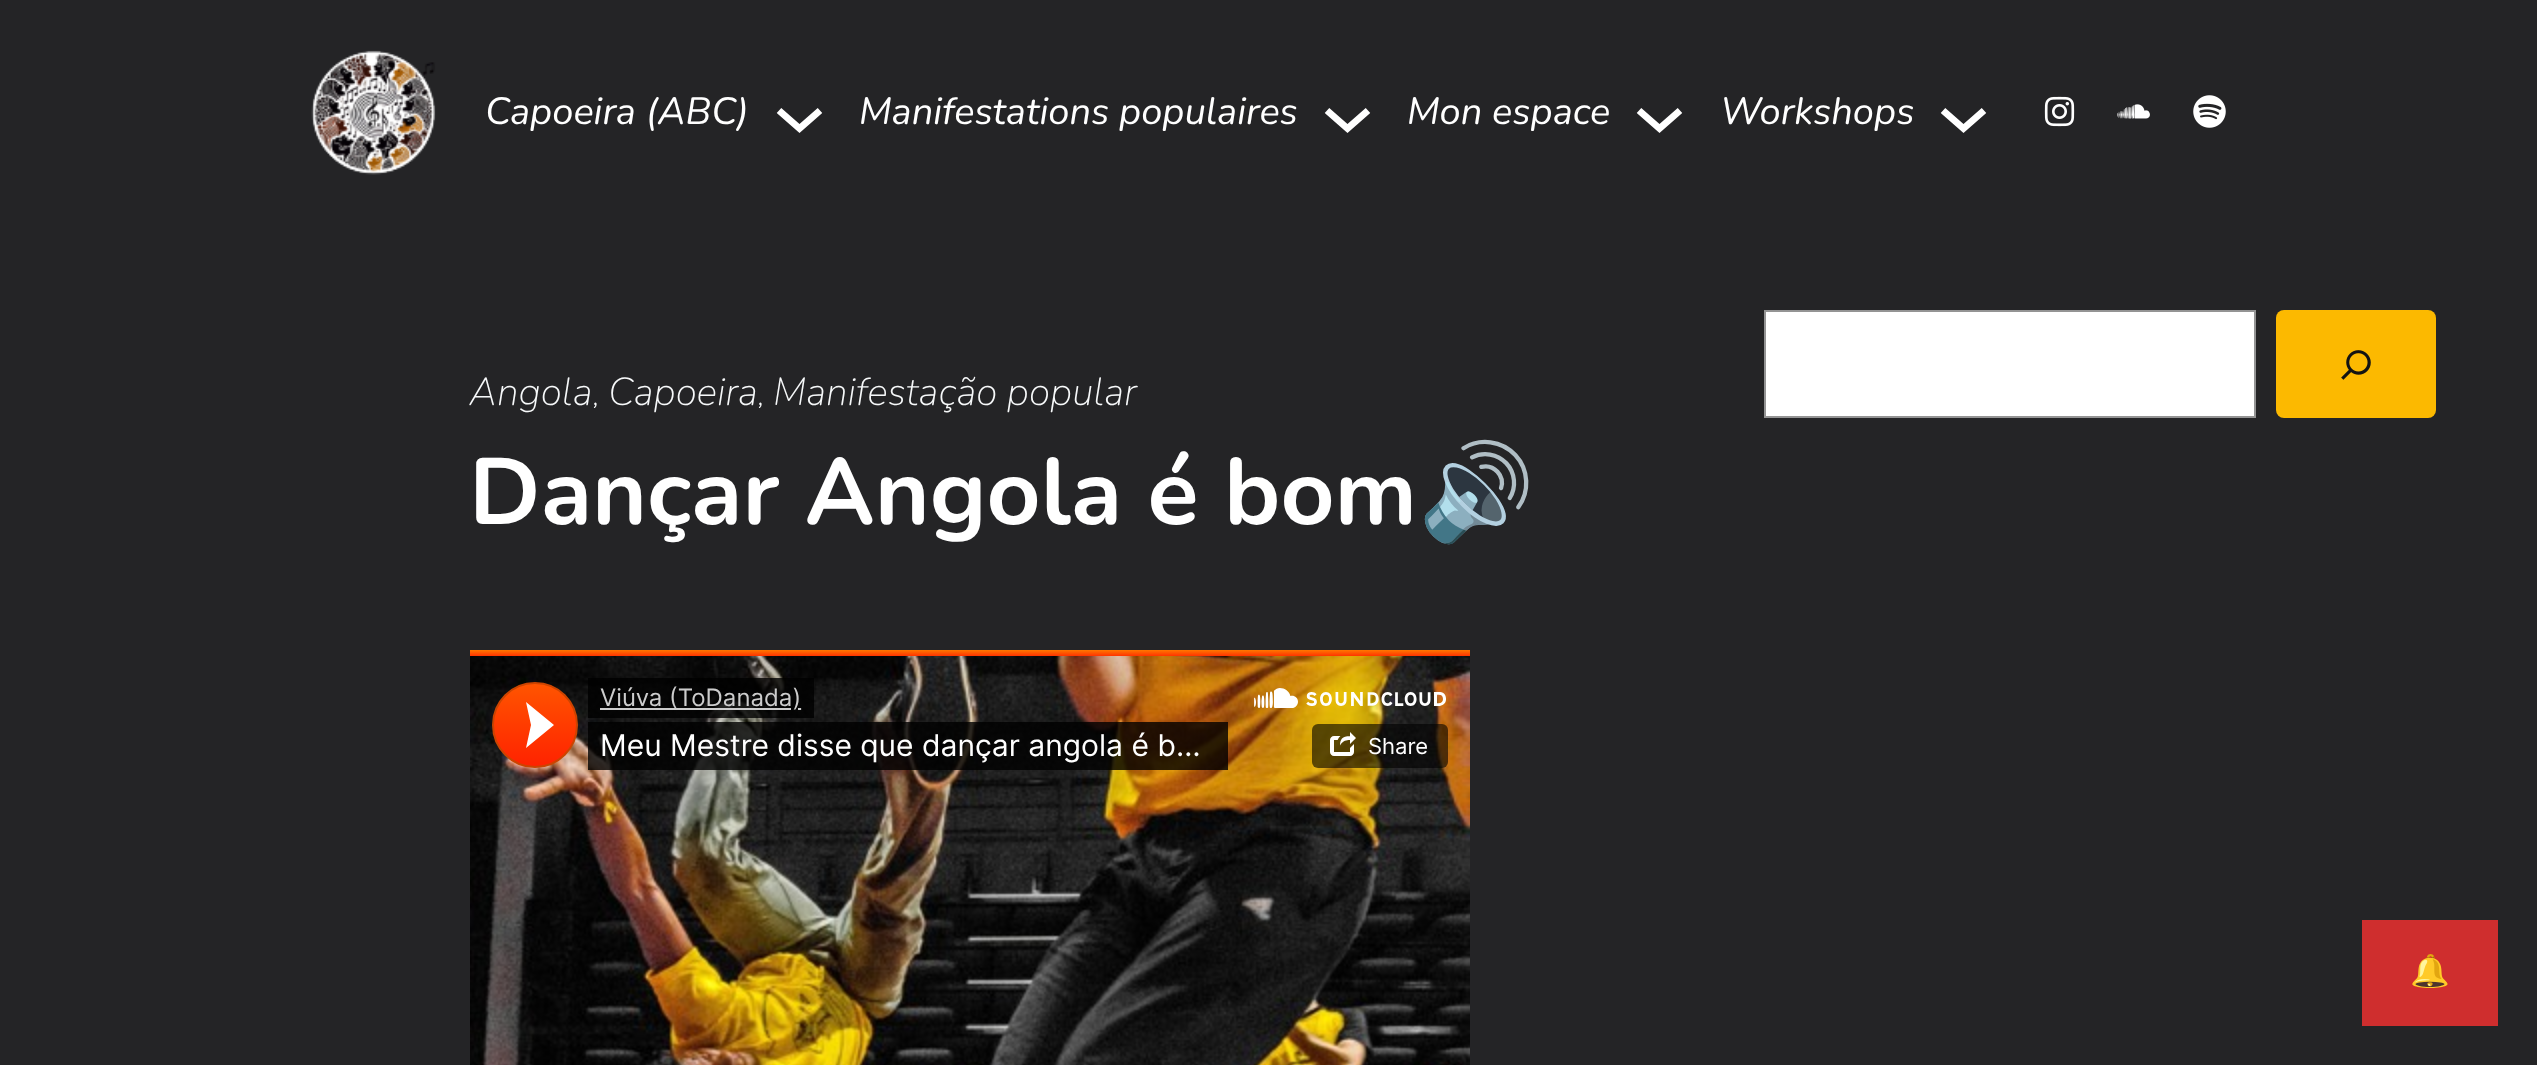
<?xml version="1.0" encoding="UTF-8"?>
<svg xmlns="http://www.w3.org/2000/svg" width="2537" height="1065">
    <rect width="100%" height="100%" fill="#242426"/>
    <image x="311" y="50" width="125" height="125" href="img_01.png"/>
    <text x="485" y="124" font-family="Nunito" font-size="38" font-style="italic" fill="#FFFFFF">Capoeira (ABC)</text>
    <path d="M 779 110.5 L 799.5 128.5 L 820 110.5" fill="none" stroke="#FFFFFF" stroke-width="6.9"/>
    <text x="859" y="124" font-family="Nunito" font-size="38" font-style="italic" fill="#FFFFFF">Manifestations populaires</text>
    <path d="M 1327 110.5 L 1347.5 128.5 L 1368 110.5" fill="none" stroke="#FFFFFF" stroke-width="6.9"/>
    <text x="1407" y="124" font-family="Nunito" font-size="38" font-style="italic" fill="#FFFFFF">Mon espace</text>
    <path d="M 1639 110.5 L 1659.5 128.5 L 1680 110.5" fill="none" stroke="#FFFFFF" stroke-width="6.9"/>
    <text x="1720" y="124" font-family="Nunito" font-size="38" font-style="italic" fill="#FFFFFF">Workshops</text>
    <path d="M 1943 110.5 L 1963.5 128.5 L 1984 110.5" fill="none" stroke="#FFFFFF" stroke-width="6.9"/>
    <image x="2044" y="96" width="31" height="31" href="img_02.png"/>
    <image x="2117" y="104" width="33" height="15" href="img_03.png"/>
    <image x="2193" y="95" width="33" height="33" href="img_04.png"/>
    <rect x="1765" y="311" width="490" height="106" fill="#FFFFFF" stroke="#949494" stroke-width="2"/>
    <rect x="2276" y="310" width="160" height="108" rx="8" fill="#FCB900"/>
    <image x="2341" y="350" width="30" height="30" href="img_05.png"/>
    <text x="469" y="405" font-family="Nunito" font-size="39" font-weight="200" font-style="italic" fill="#F7F9FA">Angola</text>
    <text x="593" y="405" font-family="Nunito" font-size="33" font-weight="200" font-style="italic" fill="#F7F9FA">,</text>
    <text x="608" y="405" font-family="Nunito" font-size="39" font-weight="200" font-style="italic" fill="#F7F9FA">Capoeira</text>
    <text x="758" y="405" font-family="Nunito" font-size="33" font-weight="200" font-style="italic" fill="#F7F9FA">,</text>
    <text x="773" y="405" font-family="Nunito" font-size="39" font-weight="200" font-style="italic" fill="#F7F9FA">Manifestação popular</text>
    <text x="469" y="524" font-family="Nunito" font-size="94" font-weight="700" fill="#FFFFFF">Dançar Angola é bom</text>
    <text x="1418" y="524" font-family="Noto Color Emoji" font-size="94" font-weight="700" fill="#FFFFFF">🔊</text>
    <image x="470" y="650" width="1000" height="415" href="img_06.png"/>
    <rect x="2362" y="920" width="136" height="106" fill="#CF2E2E"/>
    <text x="2410" y="982" font-family="Noto Color Emoji" font-size="32" fill="#FFFFFF">🔔</text>
</svg>
